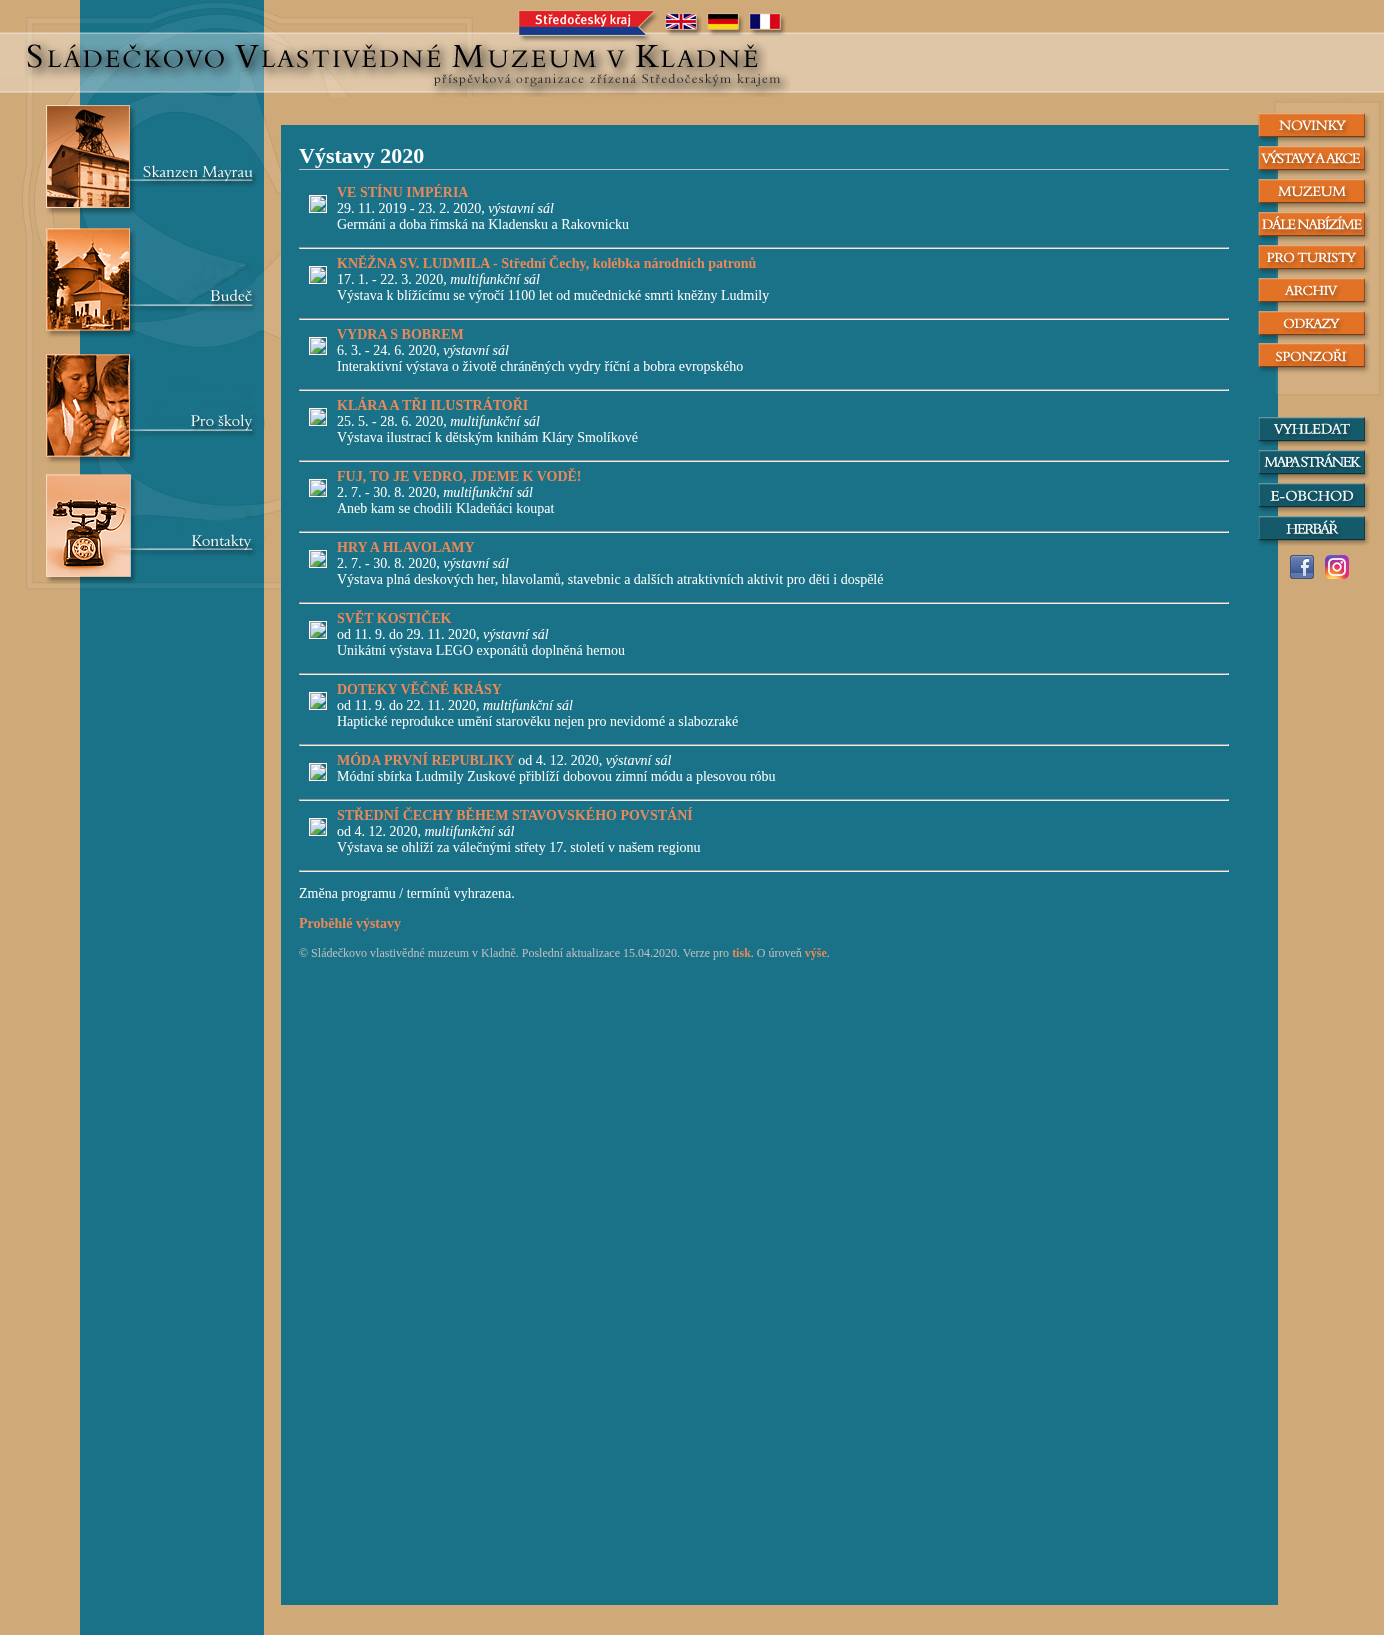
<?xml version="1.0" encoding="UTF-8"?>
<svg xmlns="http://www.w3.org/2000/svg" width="1384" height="1635">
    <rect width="100%" height="100%" fill="#CFA978"/>
    <image x="0" y="0" width="1384" height="97" href="img_01.png"/>
    <image x="80" y="0" width="184" height="8" href="img_02.png"/>
    <image x="24" y="8" width="492" height="89" href="img_03.png"/>
    <image x="518" y="10" width="146" height="36" href="img_04.png"/>
    <image x="665" y="13" width="37" height="23" href="img_05.png"/>
    <image x="707" y="13" width="37" height="23" href="img_06.png"/>
    <image x="749" y="13" width="37" height="23" href="img_07.png"/>
    <image x="516" y="46" width="148" height="22" href="img_08.png"/>
    <image x="664" y="41" width="104" height="27" href="img_09.png"/>
    <image x="516" y="68" width="121" height="29" href="img_10.png"/>
    <image x="637" y="68" width="149" height="29" href="img_11.png"/>
    <image x="786" y="75" width="4" height="18" href="img_12.png"/>
    <rect x="790" y="81" width="1" height="6" fill="#D9C1A1"/>
    <rect x="80" y="97" width="184" height="1538" fill="#1A7288"/>
    <image x="26" y="97" width="234" height="8" href="img_13.png"/>
    <image x="22" y="105" width="23" height="485" href="img_14.png"/>
    <image x="45" y="105" width="95" height="114" href="img_15.png"/>
    <image x="140" y="105" width="141" height="332" href="img_16.png"/>
    <image x="45" y="219" width="95" height="9" href="img_17.png"/>
    <image x="45" y="228" width="95" height="110" href="img_18.png"/>
    <image x="45" y="354" width="95" height="114" href="img_19.png"/>
    <image x="99" y="468" width="32" height="6" href="img_20.png"/>
    <image x="45" y="474" width="96" height="114" href="img_21.png"/>
    <image x="141" y="481" width="140" height="109" href="img_22.png"/>
    <image x="45" y="588" width="96" height="2" href="img_23.png"/>
    <image x="281" y="125" width="966" height="1480" href="img_24.png"/>
    <rect x="1247" y="125" width="31" height="1480" fill="#1A7288"/>
    <image x="1274" y="98" width="107" height="14" href="img_25.png"/>
    <image x="1258" y="112" width="116" height="33" href="img_26.png"/>
    <image x="1374" y="112" width="7" height="284" href="img_27.png"/>
    <image x="1258" y="145" width="116" height="33" href="img_28.png"/>
    <image x="1258" y="178" width="116" height="33" href="img_29.png"/>
    <image x="1258" y="211" width="116" height="33" href="img_30.png"/>
    <image x="1258" y="244" width="116" height="33" href="img_31.png"/>
    <image x="1258" y="277" width="116" height="33" href="img_32.png"/>
    <image x="1258" y="310" width="116" height="32" href="img_33.png"/>
    <image x="1258" y="342" width="116" height="36" href="img_34.png"/>
    <image x="1275" y="378" width="99" height="18" href="img_35.png"/>
    <image x="1258" y="417" width="112" height="30" href="img_36.png"/>
    <image x="1258" y="450" width="112" height="30" href="img_37.png"/>
    <image x="1258" y="483" width="112" height="30" href="img_38.png"/>
    <image x="1258" y="516" width="112" height="30" href="img_39.png"/>
    <image x="1290" y="555" width="24" height="24" href="img_40.png"/>
    <image x="1325" y="555" width="24" height="24" href="img_41.png"/>
</svg>
